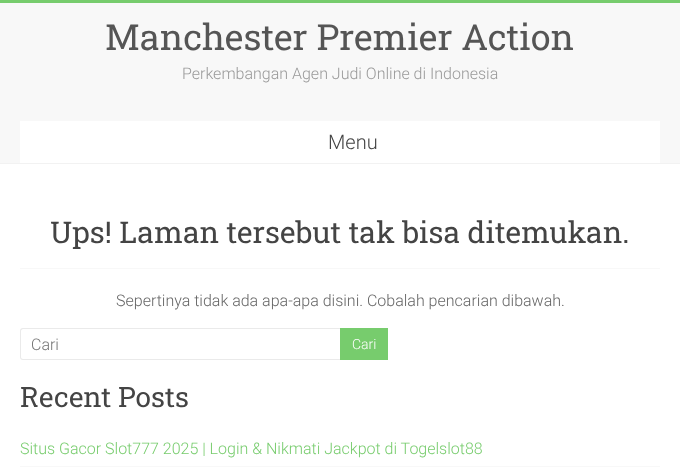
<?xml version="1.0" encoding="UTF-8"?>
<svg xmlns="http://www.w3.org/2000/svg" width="680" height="475">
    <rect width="100%" height="100%" fill="#FFFFFF"/>
    <rect x="0" y="0" width="680" height="3" fill="#77CC6D"/>
    <rect x="0" y="3" width="680" height="160" fill="#F8F8F8"/>
    <rect x="0" y="163" width="680" height="1" fill="#F2F2F2"/>
    <text x="105" y="50" font-family="Roboto Slab" font-size="36" fill="#555555">Manchester Premier Action</text>
    <text x="182" y="79" font-family="Roboto" font-size="16" font-weight="300" fill="#999999">Perkembangan Agen Judi Online di Indonesia</text>
    <rect x="20" y="121" width="640" height="42" fill="#FFFFFF"/>
    <text x="328" y="149" font-family="Roboto" font-size="20" font-weight="300" fill="#444444">Menu</text>
    <rect x="20" y="268" width="640" height="1" fill="#F8F8F8"/>
    <text x="50" y="243" font-family="Roboto Slab" font-size="30" fill="#444444">Ups! Laman tersebut tak bisa ditemukan.</text>
    <text x="116" y="306" font-family="Roboto" font-size="16" font-weight="300" fill="#666666">Sepertinya tidak ada apa-apa disini. Cobalah pencarian dibawah.</text>
    <path d="M 23 328 H 340 V 360 H 23 C 21 360 20 359 20 357 V 331 C 20 329 21 328 23 328 Z M 23 329 H 340 V 359 H 23 C 22 359 21 358 21 357 V 331 C 21 330 22 329 23 329 Z" fill="#EAEAEA" fill-rule="evenodd"/>
    <text x="31" y="350" font-family="Roboto" font-size="16" font-weight="300" fill="#757575">Cari</text>
    <rect x="340" y="328" width="48" height="32" fill="#77CC6D"/>
    <text x="352" y="349" font-family="Roboto" font-size="14" font-weight="300" fill="#FFFFFF">Cari</text>
    <text x="20" y="407" font-family="Roboto Slab" font-size="28" fill="#444444">Recent Posts</text>
    <rect x="20" y="466" width="640" height="1" fill="#F8F8F8"/>
    <text x="20" y="454" font-family="Roboto" font-size="16" font-weight="300" fill="#77CC6D">Situs Gacor Slot777 2025 | Login &amp; Nikmati Jackpot di Togelslot88</text>
</svg>
